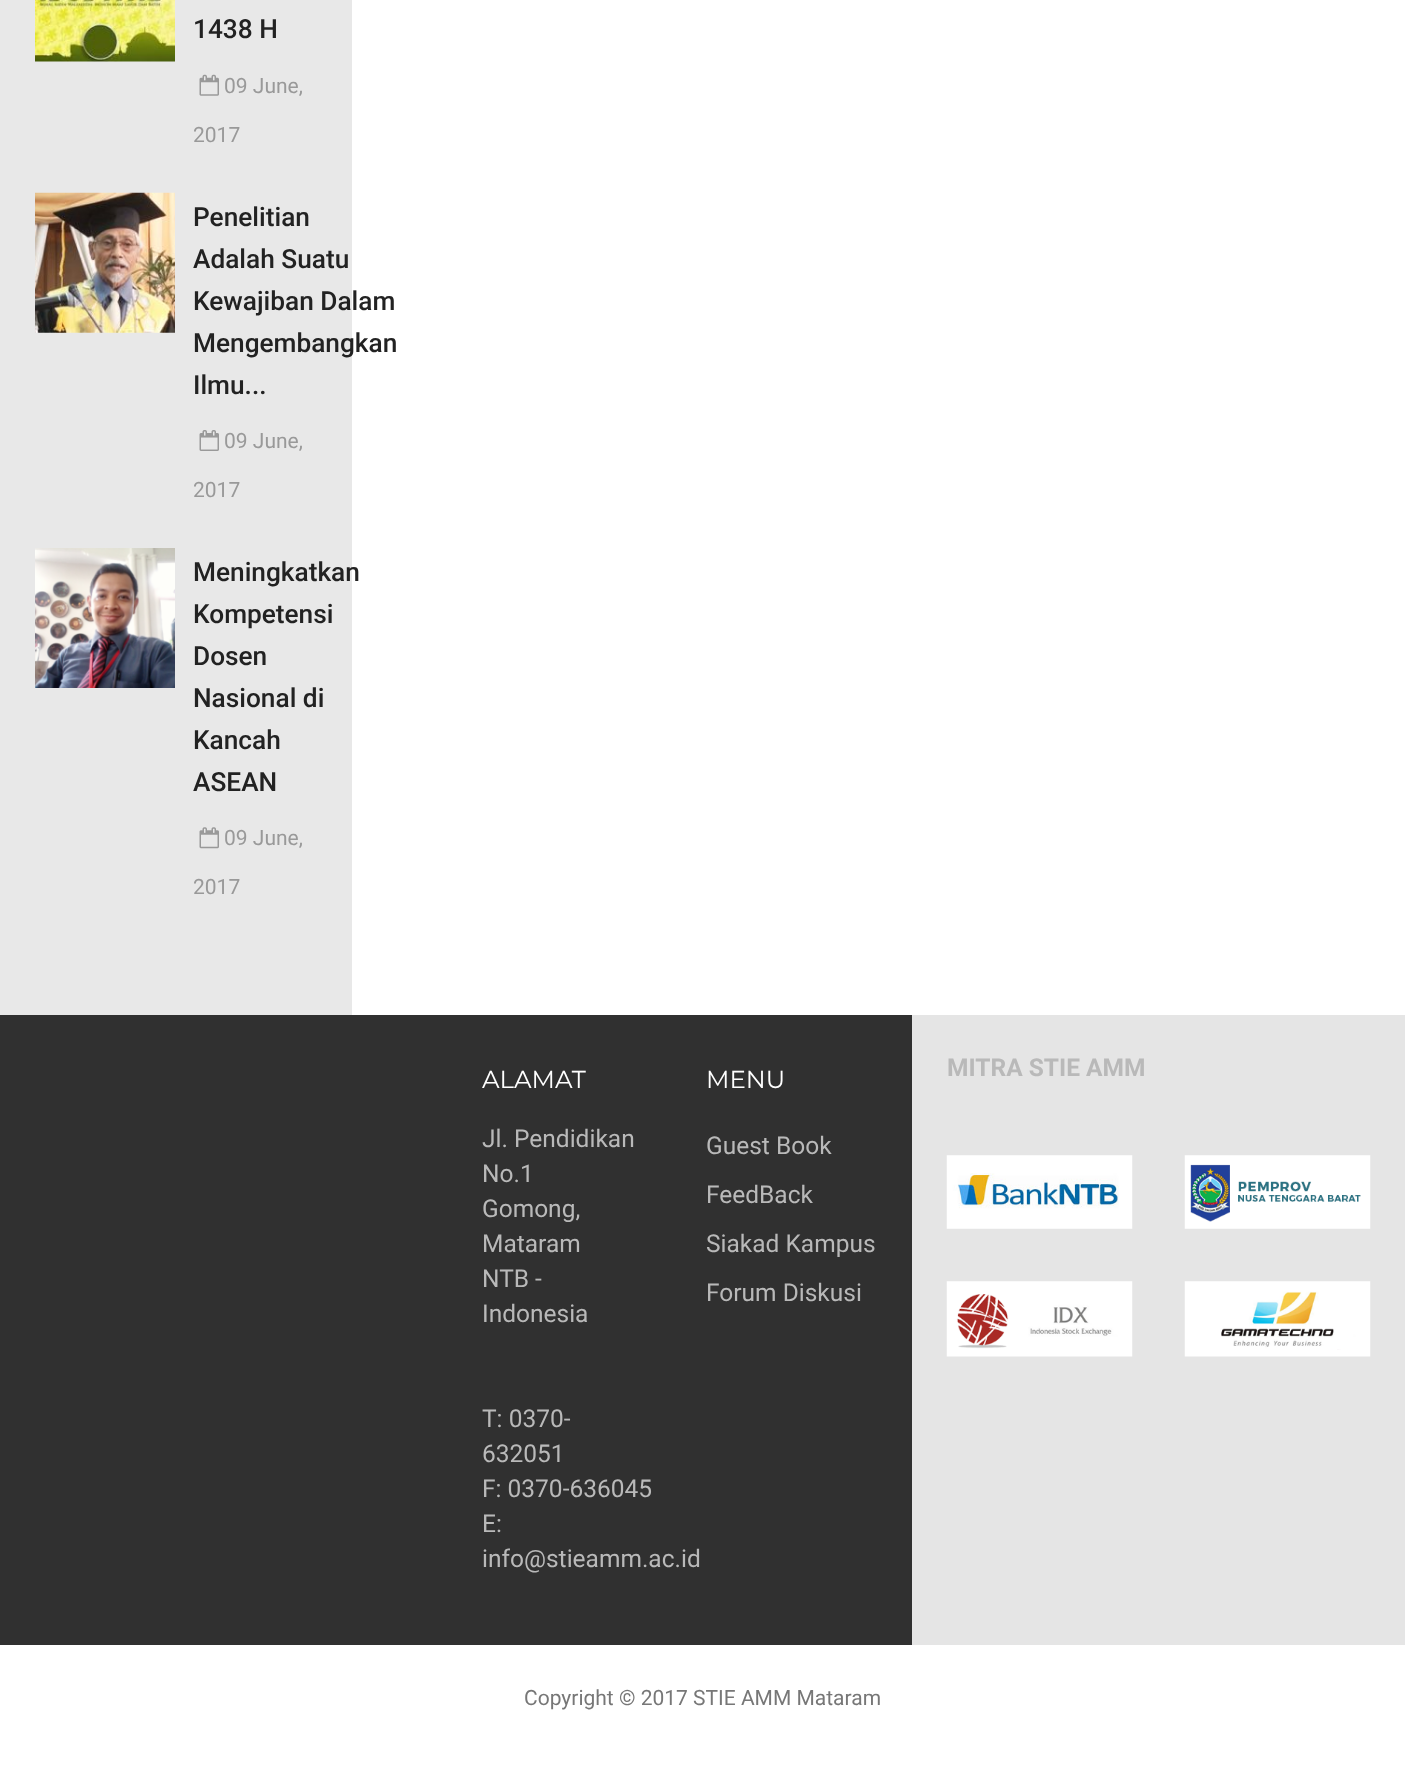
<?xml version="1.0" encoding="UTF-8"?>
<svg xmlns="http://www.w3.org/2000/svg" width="1405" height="1766">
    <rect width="100%" height="100%" fill="#FFFFFF"/>
    <rect x="0" y="0" width="352" height="1015" fill="#E8E8E8"/>
    <image x="35" y="0" width="140" height="62" href="img_01.png"/>
    <text x="193" y="38" font-family="Roboto" font-size="26.25" font-weight="500" fill="#222222">1438 H</text>
    <image x="199" y="74" width="20" height="22" href="img_02.png"/>
    <text x="224" y="93" font-family="Roboto" font-size="21" fill="#999999">09 June,</text>
    <text x="193" y="142" font-family="Roboto" font-size="21" fill="#999999">2017</text>
    <image x="35" y="192" width="140" height="141" href="img_03.png"/>
    <text font-family="Roboto" font-size="26.25" font-weight="500" fill="#222222">
        <tspan x="193" y="226">Penelitian</tspan>
        <tspan x="193" y="268">Adalah Suatu</tspan>
        <tspan x="193" y="310">Kewajiban Dalam</tspan>
        <tspan x="193" y="352">Mengembangkan</tspan>
        <tspan x="193" y="394">Ilmu...</tspan>
    </text>
    <image x="199" y="430" width="20" height="21" href="img_04.png"/>
    <text x="224" y="448" font-family="Roboto" font-size="21" fill="#999999">09 June,</text>
    <text x="193" y="497" font-family="Roboto" font-size="21" fill="#999999">2017</text>
    <image x="35" y="548" width="140" height="140" href="img_05.png"/>
    <text font-family="Roboto" font-size="26.25" font-weight="500" fill="#222222">
        <tspan x="193" y="581">Meningkatkan</tspan>
        <tspan x="193" y="623">Kompetensi</tspan>
        <tspan x="193" y="665">Dosen</tspan>
        <tspan x="193" y="707">Nasional di</tspan>
        <tspan x="193" y="749">Kancah</tspan>
        <tspan x="193" y="791">ASEAN</tspan>
    </text>
    <image x="199" y="827" width="20" height="22" href="img_06.png"/>
    <text x="224" y="845" font-family="Roboto" font-size="21" fill="#999999">09 June,</text>
    <text x="193" y="894" font-family="Roboto" font-size="21" fill="#999999">2017</text>
    <rect x="912" y="1015" width="493" height="630" fill="#E5E5E5"/>
    <text x="947" y="1076" font-family="Roboto" font-size="24.5" font-weight="700" fill="#B9B9B9">MITRA STIE AMM</text>
    <image x="946" y="1155" width="187" height="74" href="img_07.png"/>
    <image x="946" y="1281" width="187" height="76" href="img_08.png"/>
    <image x="1184" y="1155" width="187" height="74" href="img_09.png"/>
    <image x="1184" y="1281" width="187" height="76" href="img_10.png"/>
    <rect x="0" y="1015" width="912" height="630" fill="#303030"/>
    <text x="482" y="1088" font-family="Montserrat" font-size="24.5" fill="#FFFFFF">ALAMAT</text>
    <text font-family="Roboto" font-size="24.5" fill="#B9B9B9">
        <tspan x="482" y="1147">Jl. Pendidikan</tspan>
        <tspan x="482" y="1182">No.1</tspan>
        <tspan x="482" y="1217">Gomong,</tspan>
        <tspan x="482" y="1252">Mataram</tspan>
        <tspan x="482" y="1287">NTB -</tspan>
        <tspan x="482" y="1322">Indonesia</tspan>
    </text>
    <text font-family="Roboto" font-size="24.5" fill="#B9B9B9">
        <tspan x="482" y="1427">T: 0370-</tspan>
        <tspan x="482" y="1462">632051</tspan>
        <tspan x="482" y="1497">F: 0370-636045</tspan>
        <tspan x="482" y="1532">E:</tspan>
        <tspan x="482" y="1567">info@stieamm.ac.id</tspan>
    </text>
    <text x="706" y="1088" font-family="Montserrat" font-size="24.5" fill="#FFFFFF">MENU</text>
    <text x="706" y="1154" font-family="Roboto" font-size="24.5" fill="#B9B9B9">Guest Book</text>
    <text x="706" y="1203" font-family="Roboto" font-size="24.5" fill="#B9B9B9">FeedBack</text>
    <text x="706" y="1252" font-family="Roboto" font-size="24.5" fill="#B9B9B9">Siakad Kampus</text>
    <text x="706" y="1301" font-family="Roboto" font-size="24.5" fill="#B9B9B9">Forum Diskusi</text>
    <text x="524" y="1705" font-family="Roboto" font-size="21" fill="#777777">Copyright © 2017 STIE AMM Mataram</text>
</svg>
